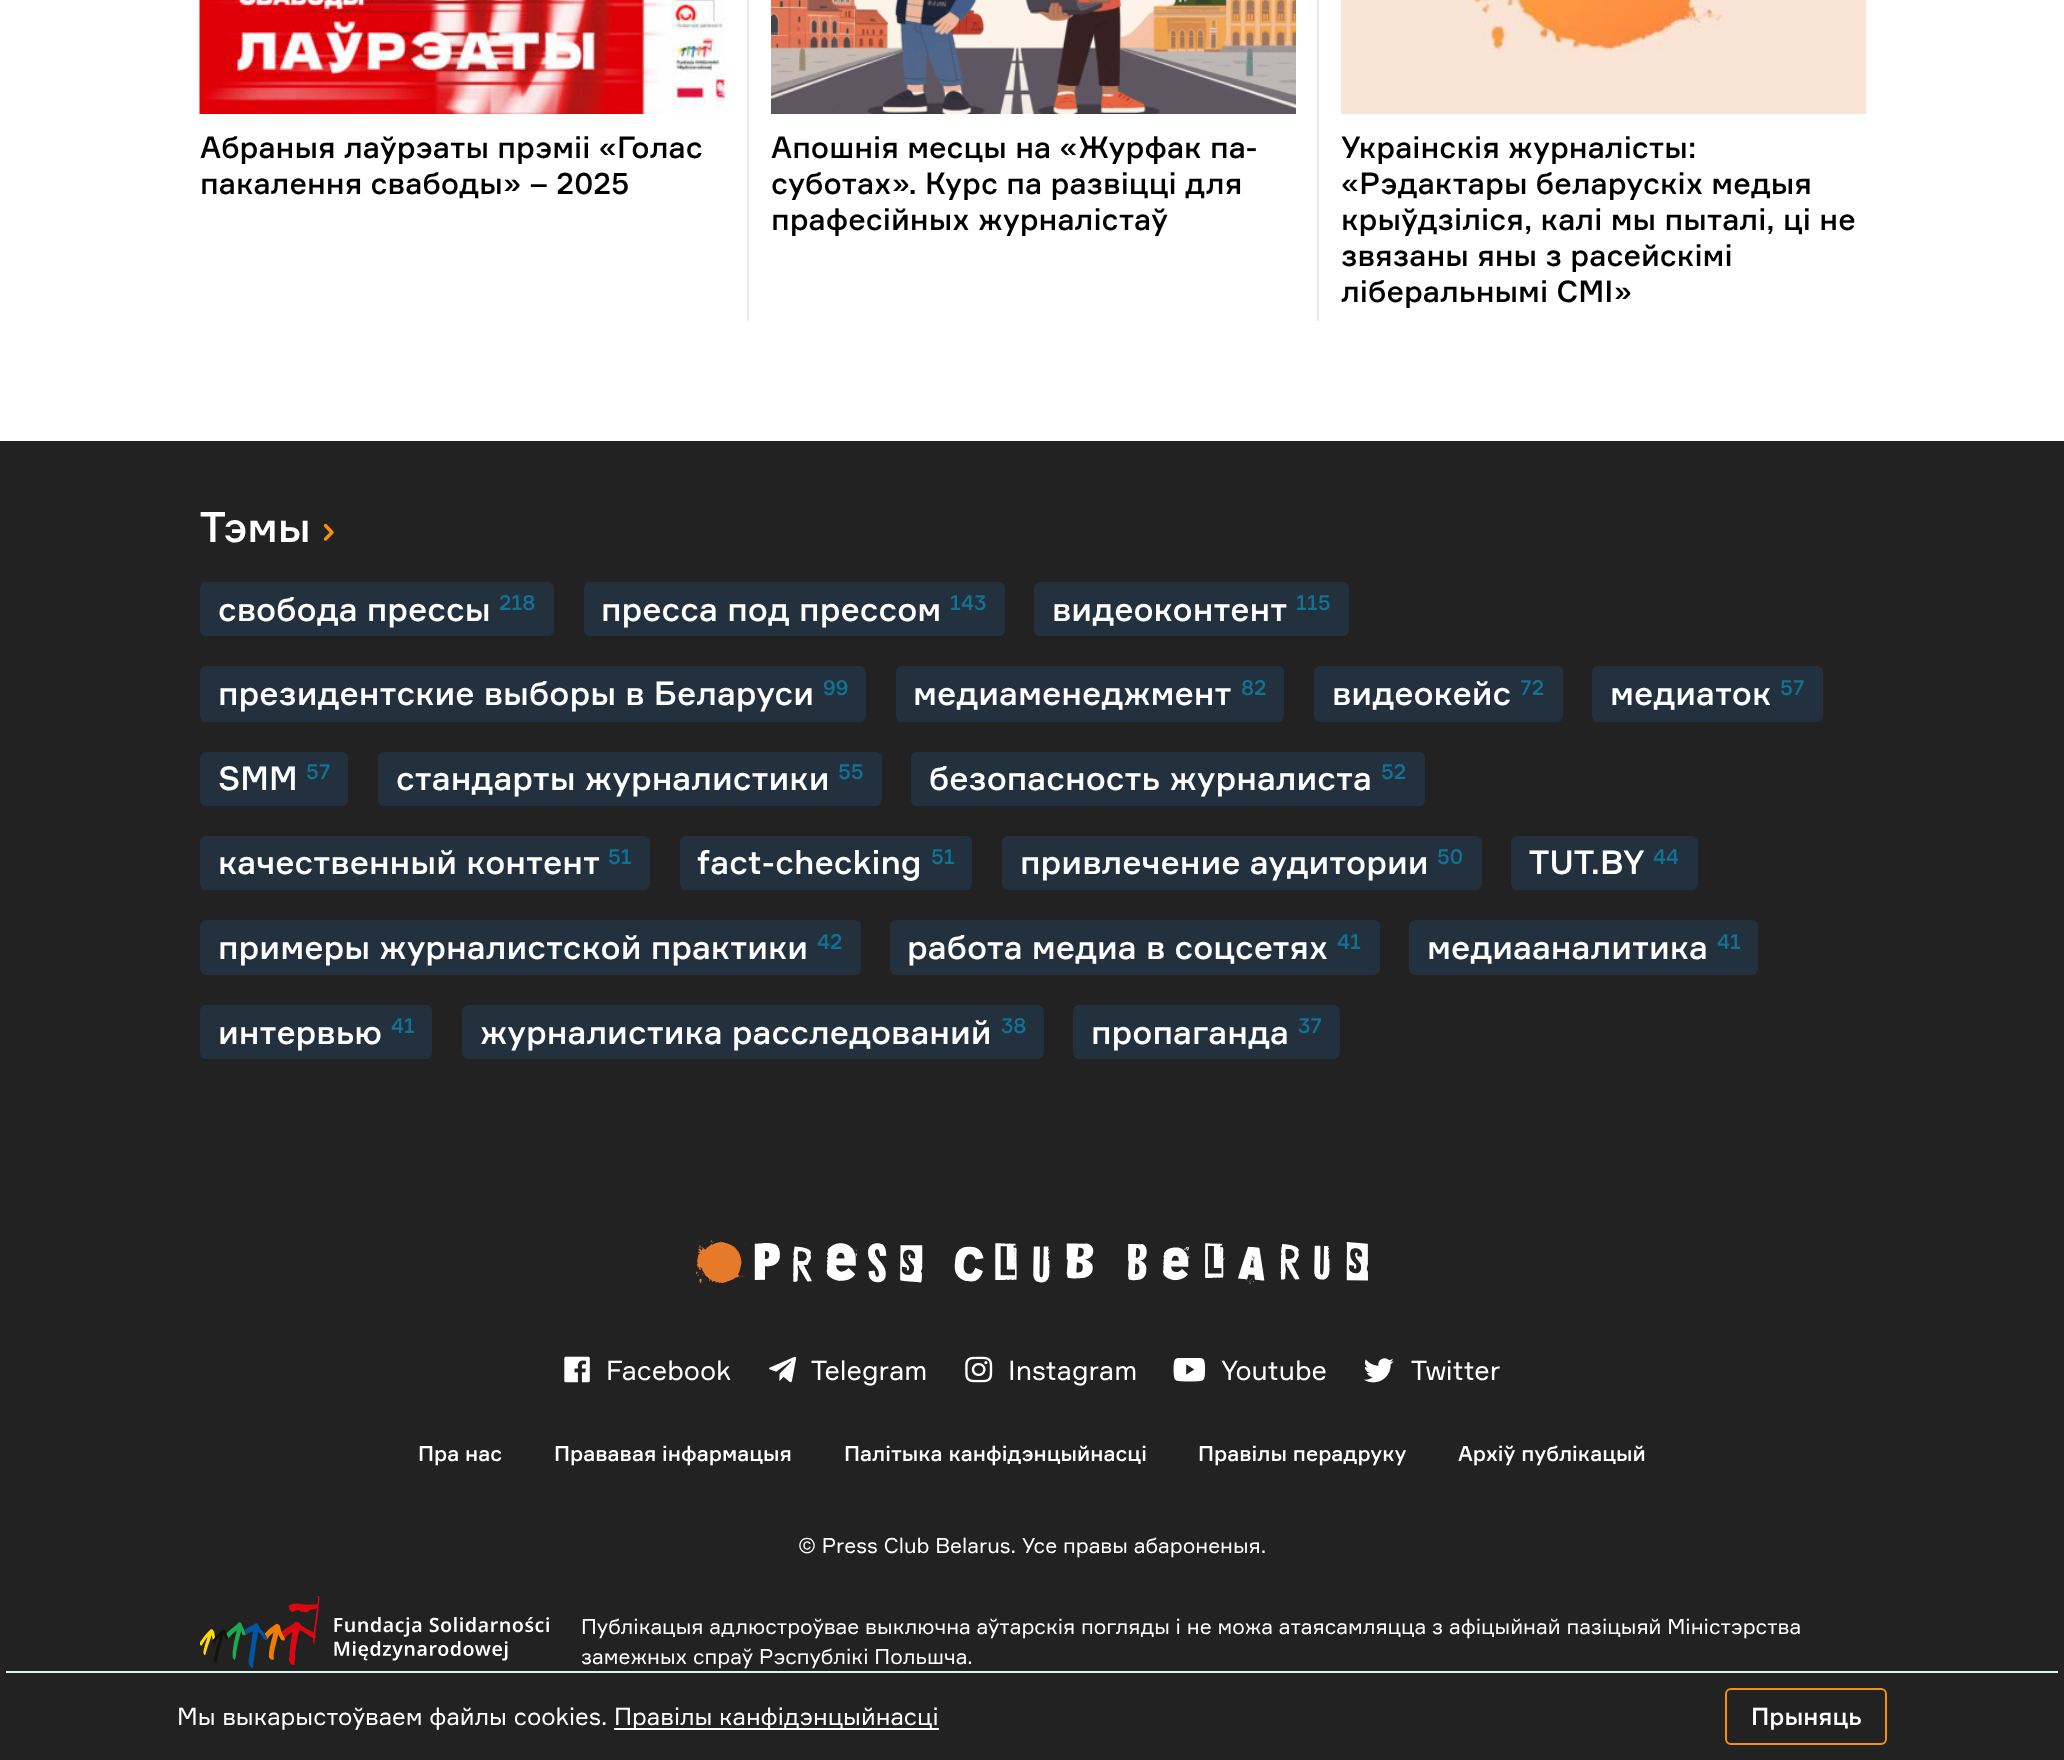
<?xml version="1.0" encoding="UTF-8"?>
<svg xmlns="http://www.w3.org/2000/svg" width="2064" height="1760">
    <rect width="100%" height="100%" fill="#FFFFFF"/>
    <image x="199" y="0" width="526" height="114" href="img_01.png"/>
    <text font-family="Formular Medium" font-size="30" font-weight="500" fill="#000000">
        <tspan x="200" y="158">Абраныя лаўрэаты прэміі «Голас</tspan>
        <tspan x="200" y="194">пакалення свабоды» – 2025</tspan>
    </text>
    <rect x="747" y="0" width="2" height="321" fill="#EAEAEA"/>
    <image x="771" y="0" width="525" height="114" href="img_02.png"/>
    <text font-family="Formular Medium" font-size="30" font-weight="500" fill="#000000">
        <tspan x="771" y="158">Апошнія месцы на «Журфак па-</tspan>
        <tspan x="771" y="194">суботах». Курс па развіцці для</tspan>
        <tspan x="771" y="230">прафесійных журналістаў</tspan>
    </text>
    <rect x="1317" y="0" width="2" height="321" fill="#EAEAEA"/>
    <image x="1341" y="0" width="525" height="114" href="img_03.png"/>
    <text font-family="Formular Medium" font-size="30" font-weight="500" fill="#000000">
        <tspan x="1341" y="158">Украінскія журналісты:</tspan>
        <tspan x="1341" y="194">«Рэдактары беларускіх медыя</tspan>
        <tspan x="1341" y="230">крыўдзіліся, калі мы пыталі, ці не</tspan>
        <tspan x="1341" y="266">звязаны яны з расейскімі</tspan>
        <tspan x="1341" y="302">ліберальнымі СМІ»</tspan>
    </text>
    <rect x="0" y="441" width="2064" height="1319" fill="#222222"/>
    <text x="200" y="542" font-family="Formular Medium" font-size="42" font-weight="500" fill="#FFFFFF">Тэмы</text>
    <path d="M 325.5 539 L 332 532.5 L 325.5 525.5" fill="none" stroke="#F5900E" stroke-width="3.4" stroke-linecap="round" stroke-linejoin="round"/>
    <rect x="200" y="582" width="354" height="54" rx="6" fill="#23313E"/>
    <text x="218" y="621" font-family="Formular Medium" font-size="33" font-weight="500" fill="#FFFFFF">свобода прессы</text>
    <text x="499" y="610" font-family="Formular Medium" font-size="21" font-weight="500" fill="#127294">218</text>
    <rect x="584" y="582" width="421" height="54" rx="6" fill="#23313E"/>
    <text x="601" y="621" font-family="Formular Medium" font-size="33" font-weight="500" fill="#FFFFFF">пресса под прессом</text>
    <text x="950" y="610" font-family="Formular Medium" font-size="21" font-weight="500" fill="#127294">143</text>
    <rect x="1034" y="582" width="315" height="54" rx="6" fill="#23313E"/>
    <text x="1052" y="621" font-family="Formular Medium" font-size="33" font-weight="500" fill="#FFFFFF">видеоконтент</text>
    <text x="1296" y="610" font-family="Formular Medium" font-size="21" font-weight="500" fill="#127294">115</text>
    <rect x="200" y="666" width="666" height="56" rx="6" fill="#23313E"/>
    <text x="218" y="705" font-family="Formular Medium" font-size="33" font-weight="500" fill="#FFFFFF">президентские выборы в Беларуси</text>
    <text x="823" y="695" font-family="Formular Medium" font-size="21" font-weight="500" fill="#127294">99</text>
    <rect x="896" y="666" width="388" height="56" rx="6" fill="#23313E"/>
    <text x="913" y="705" font-family="Formular Medium" font-size="33" font-weight="500" fill="#FFFFFF">медиаменеджмент</text>
    <text x="1241" y="695" font-family="Formular Medium" font-size="21" font-weight="500" fill="#127294">82</text>
    <rect x="1314" y="666" width="249" height="56" rx="6" fill="#23313E"/>
    <text x="1332" y="705" font-family="Formular Medium" font-size="33" font-weight="500" fill="#FFFFFF">видеокейс</text>
    <text x="1520" y="695" font-family="Formular Medium" font-size="21" font-weight="500" fill="#127294">72</text>
    <rect x="1592" y="666" width="231" height="56" rx="6" fill="#23313E"/>
    <text x="1610" y="705" font-family="Formular Medium" font-size="33" font-weight="500" fill="#FFFFFF">медиаток</text>
    <text x="1780" y="695" font-family="Formular Medium" font-size="21" font-weight="500" fill="#127294">57</text>
    <rect x="200" y="752" width="148" height="54" rx="6" fill="#23313E"/>
    <text x="218" y="790" font-family="Formular Medium" font-size="33" font-weight="500" fill="#FFFFFF">SMM</text>
    <text x="306" y="779" font-family="Formular Medium" font-size="21" font-weight="500" fill="#127294">57</text>
    <rect x="378" y="752" width="504" height="54" rx="6" fill="#23313E"/>
    <text x="396" y="790" font-family="Formular Medium" font-size="33" font-weight="500" fill="#FFFFFF">стандарты журналистики</text>
    <text x="838" y="779" font-family="Formular Medium" font-size="21" font-weight="500" fill="#127294">55</text>
    <rect x="911" y="752" width="514" height="54" rx="6" fill="#23313E"/>
    <text x="929" y="790" font-family="Formular Medium" font-size="33" font-weight="500" fill="#FFFFFF">безопасность журналиста</text>
    <text x="1381" y="779" font-family="Formular Medium" font-size="21" font-weight="500" fill="#127294">52</text>
    <rect x="200" y="836" width="450" height="54" rx="6" fill="#23313E"/>
    <text x="218" y="874" font-family="Formular Medium" font-size="33" font-weight="500" fill="#FFFFFF">качественный контент</text>
    <text x="608" y="864" font-family="Formular Medium" font-size="21" font-weight="500" fill="#127294">51</text>
    <rect x="680" y="836" width="292" height="54" rx="6" fill="#23313E"/>
    <text x="697" y="874" font-family="Formular Medium" font-size="33" font-weight="500" fill="#FFFFFF">fact-checking</text>
    <text x="931" y="864" font-family="Formular Medium" font-size="21" font-weight="500" fill="#127294">51</text>
    <rect x="1002" y="836" width="480" height="54" rx="6" fill="#23313E"/>
    <text x="1020" y="874" font-family="Formular Medium" font-size="33" font-weight="500" fill="#FFFFFF">привлечение аудитории</text>
    <text x="1437" y="864" font-family="Formular Medium" font-size="21" font-weight="500" fill="#127294">50</text>
    <rect x="1511" y="836" width="187" height="54" rx="6" fill="#23313E"/>
    <text x="1529" y="874" font-family="Formular Medium" font-size="33" font-weight="500" fill="#FFFFFF">TUT.BY</text>
    <text x="1653" y="864" font-family="Formular Medium" font-size="21" font-weight="500" fill="#127294">44</text>
    <rect x="200" y="920" width="661" height="55" rx="6" fill="#23313E"/>
    <text x="218" y="959" font-family="Formular Medium" font-size="33" font-weight="500" fill="#FFFFFF">примеры журналистской практики</text>
    <text x="817" y="949" font-family="Formular Medium" font-size="21" font-weight="500" fill="#127294">42</text>
    <rect x="890" y="920" width="490" height="55" rx="6" fill="#23313E"/>
    <text x="907" y="959" font-family="Formular Medium" font-size="33" font-weight="500" fill="#FFFFFF">работа медиа в соцсетях</text>
    <text x="1337" y="949" font-family="Formular Medium" font-size="21" font-weight="500" fill="#127294">41</text>
    <rect x="1409" y="920" width="349" height="55" rx="6" fill="#23313E"/>
    <text x="1427" y="959" font-family="Formular Medium" font-size="33" font-weight="500" fill="#FFFFFF">медиааналитика</text>
    <text x="1717" y="949" font-family="Formular Medium" font-size="21" font-weight="500" fill="#127294">41</text>
    <rect x="200" y="1005" width="232" height="54" rx="6" fill="#23313E"/>
    <text x="218" y="1044" font-family="Formular Medium" font-size="33" font-weight="500" fill="#FFFFFF">интервью</text>
    <text x="391" y="1033" font-family="Formular Medium" font-size="21" font-weight="500" fill="#127294">41</text>
    <rect x="462" y="1005" width="582" height="54" rx="6" fill="#23313E"/>
    <text x="480" y="1044" font-family="Formular Medium" font-size="33" font-weight="500" fill="#FFFFFF">журналистика расследований</text>
    <text x="1001" y="1033" font-family="Formular Medium" font-size="21" font-weight="500" fill="#127294">38</text>
    <rect x="1073" y="1005" width="267" height="54" rx="6" fill="#23313E"/>
    <text x="1091" y="1044" font-family="Formular Medium" font-size="33" font-weight="500" fill="#FFFFFF">пропаганда</text>
    <text x="1298" y="1033" font-family="Formular Medium" font-size="21" font-weight="500" fill="#127294">37</text>
    <image x="696" y="1240" width="672" height="44" href="img_04.png"/>
    <image x="564" y="1356" width="26" height="27" href="img_05.png"/>
    <text x="606" y="1380" font-family="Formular" font-size="27" fill="#FFFFFF">Facebook</text>
    <image x="769" y="1356" width="27" height="27" href="img_06.png"/>
    <text x="811" y="1380" font-family="Formular" font-size="27" fill="#FFFFFF">Telegram</text>
    <image x="965" y="1356" width="28" height="27" href="img_07.png"/>
    <text x="1008" y="1380" font-family="Formular" font-size="27" fill="#FFFFFF">Instagram</text>
    <image x="1173" y="1358" width="33" height="24" href="img_08.png"/>
    <text x="1221" y="1380" font-family="Formular" font-size="27" fill="#FFFFFF">Youtube</text>
    <image x="1364" y="1358" width="30" height="25" href="img_09.png"/>
    <text x="1411" y="1380" font-family="Formular" font-size="27" fill="#FFFFFF">Twitter</text>
    <text x="418" y="1461" font-family="Formular Medium" font-size="21" font-weight="500" fill="#FFFFFF">Пра нас</text>
    <text x="554" y="1461" font-family="Formular Medium" font-size="21" font-weight="500" fill="#FFFFFF">Прававая інфармацыя</text>
    <text x="844" y="1461" font-family="Formular Medium" font-size="21" font-weight="500" fill="#FFFFFF">Палітыка канфідэнцыйнасці</text>
    <text x="1198" y="1461" font-family="Formular Medium" font-size="21" font-weight="500" fill="#FFFFFF">Правiлы перадруку</text>
    <text x="1458" y="1461" font-family="Formular Medium" font-size="21" font-weight="500" fill="#FFFFFF">Архіў публікацый</text>
    <text x="798" y="1553" font-family="Formular" font-size="21" fill="#FFFFFF">© Press Club Belarus. Усе правы абароненыя.</text>
    <image x="200" y="1596" width="349" height="72" href="img_10.png"/>
    <text font-family="Formular" font-size="21" fill="#FFFFFF">
        <tspan x="581" y="1634">Публікацыя адлюстроўвае выключна аўтарскія погляды і не можа атаясамляцца з афіцыйнай пазіцыяй Міністэрства</tspan>
        <tspan x="581" y="1664">замежных спраў Рэспублікі Польшча.</tspan>
    </text>
    <rect x="6" y="1671" width="2052" height="2" fill="#D8F5F1"/>
    <text x="177" y="1725" font-family="Formular" font-size="24" fill="#FFFFFF">Мы выкарыстоўваем файлы cookies.</text>
    <rect x="614" y="1728" width="325" height="2" fill="#FFFFFF"/>
    <text x="614" y="1725" font-family="Formular" font-size="24" fill="#FFFFFF">Правілы канфідэнцыйнасці</text>
    <rect x="1726" y="1689" width="160" height="55" rx="5" fill="none" stroke="#F5900E" stroke-width="2"/>
    <text x="1751" y="1725" font-family="Formular Medium" font-size="24" font-weight="500" fill="#FFFFFF">Прыняць</text>
</svg>
